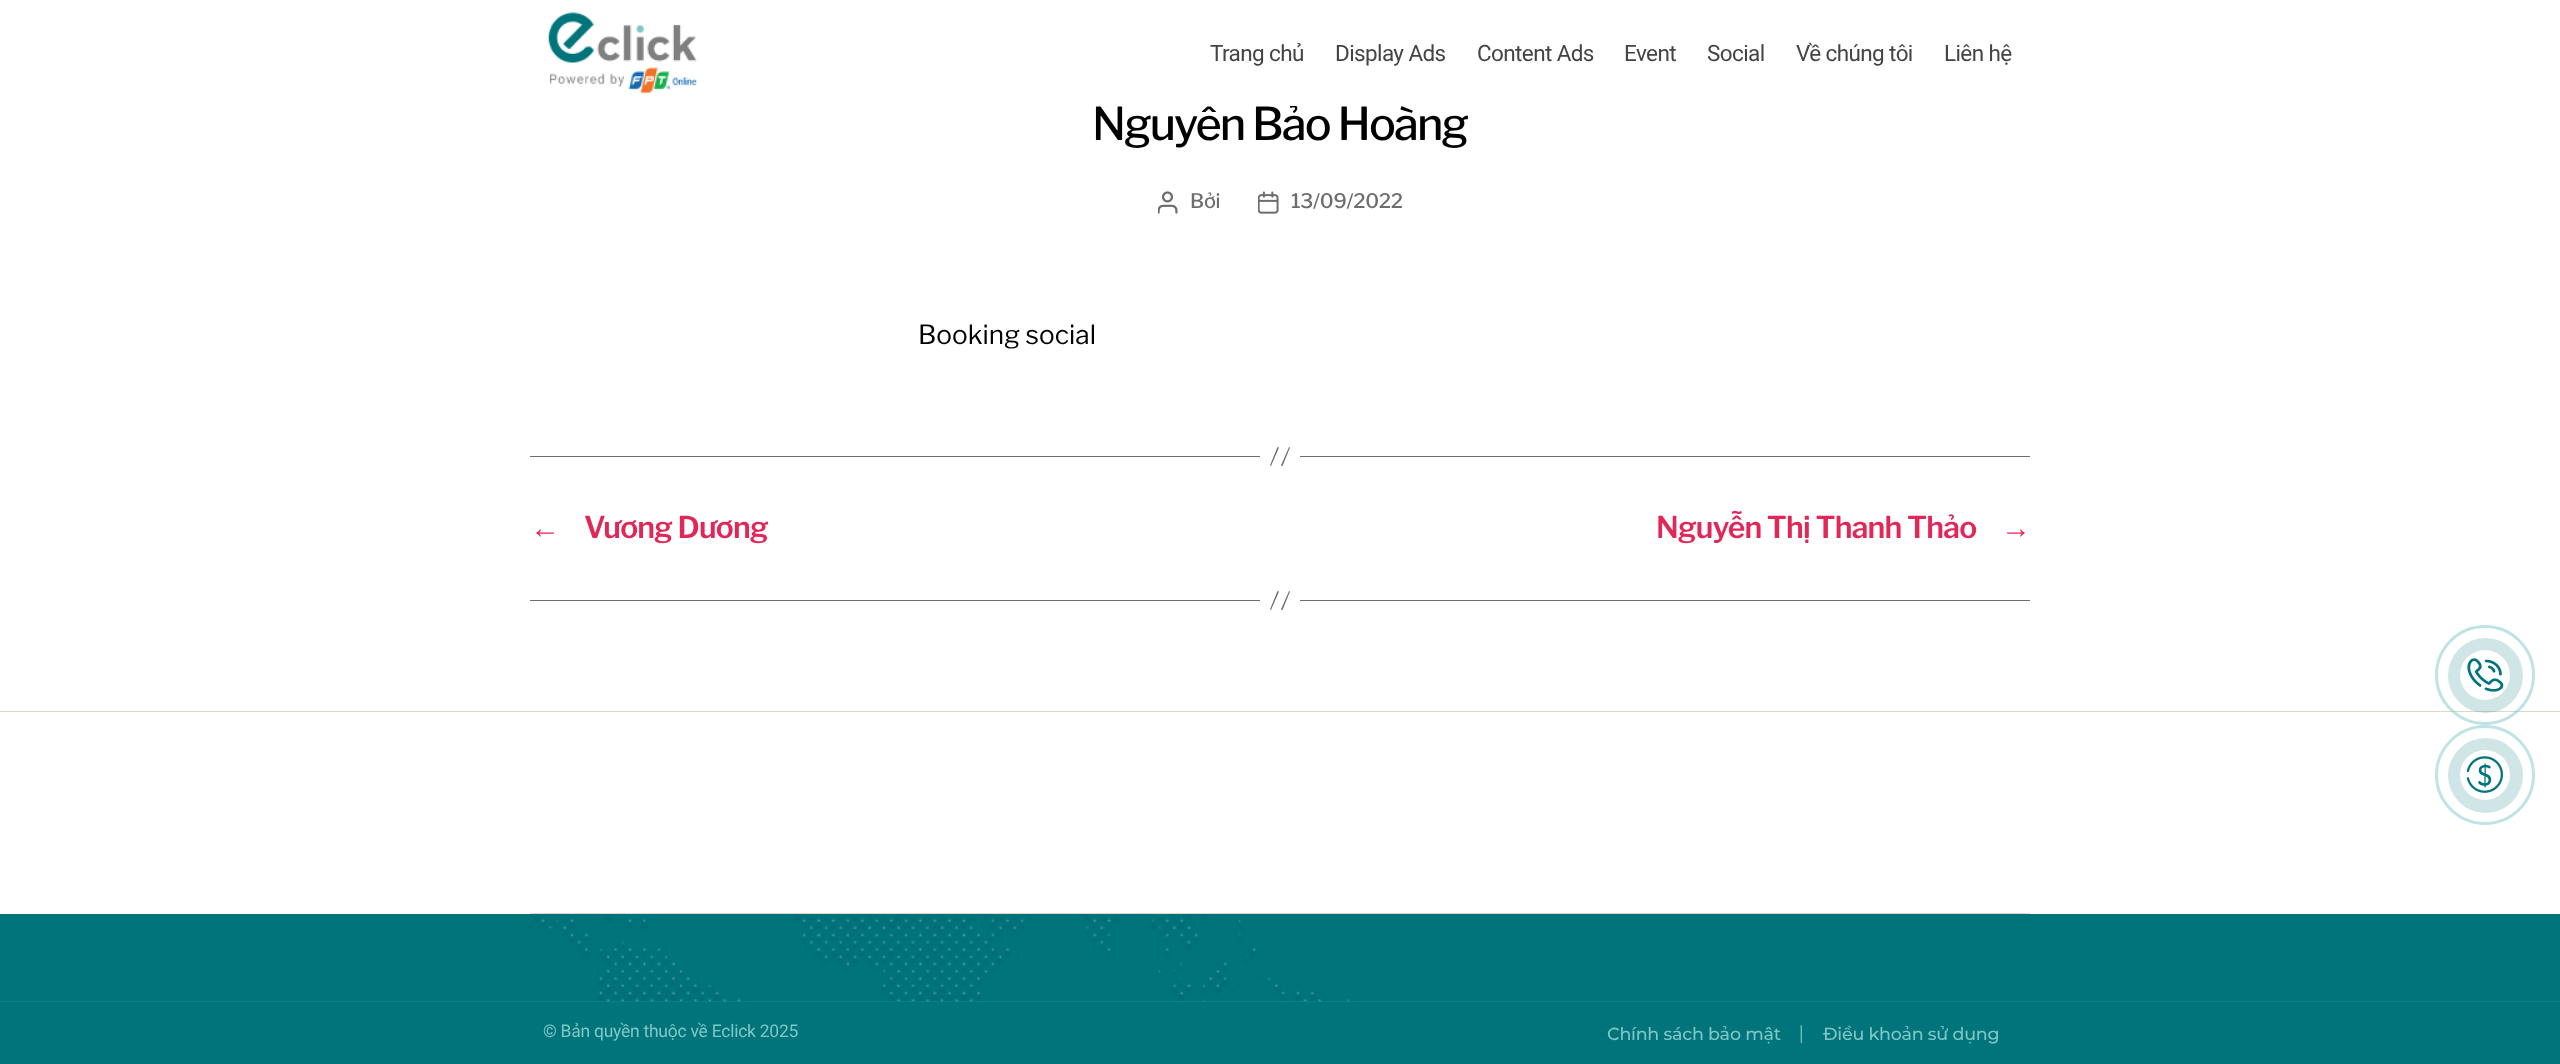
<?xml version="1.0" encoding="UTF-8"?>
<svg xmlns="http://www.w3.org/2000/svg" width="2560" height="1064">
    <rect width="100%" height="100%" fill="#FFFFFF"/>
    <text x="1092" y="140" font-family="Libre Franklin" font-size="45" font-weight="500" letter-spacing="-1.9" fill="#000000">Nguyễn Bảo Hoàng</text>
    <rect x="1202" y="99" width="95" height="7" fill="#FFFFFF"/>
    <image x="548" y="12" width="149" height="82" href="img_01.png"/>
    <text x="1210" y="61" font-family="Roboto" font-size="22.5" letter-spacing="-0.6" fill="#444444">Trang chủ</text>
    <text x="1335" y="61" font-family="Roboto" font-size="22.5" letter-spacing="-0.6" fill="#444444">Display Ads</text>
    <text x="1477" y="61" font-family="Roboto" font-size="22.5" letter-spacing="-0.6" fill="#444444">Content Ads</text>
    <text x="1624" y="61" font-family="Roboto" font-size="22.5" letter-spacing="-0.6" fill="#444444">Event</text>
    <text x="1707" y="61" font-family="Roboto" font-size="22.5" letter-spacing="-0.6" fill="#444444">Social</text>
    <text x="1796" y="61" font-family="Roboto" font-size="22.5" letter-spacing="-0.6" fill="#444444">Về chúng tôi</text>
    <text x="1944" y="61" font-family="Roboto" font-size="22.5" letter-spacing="-0.6" fill="#444444">Liên hệ</text>
    <image x="1158" y="191" width="20" height="23" href="img_02.png"/>
    <text x="1190" y="208" font-family="Libre Franklin" font-size="20" font-weight="500" letter-spacing="-0.25" fill="#6D6D6D">Bởi</text>
    <image x="1258" y="191" width="21" height="23" href="img_03.png"/>
    <text x="1291" y="208" font-family="Libre Franklin" font-size="20" font-weight="500" letter-spacing="-0.25" fill="#6D6D6D">13/09/2022</text>
    <text x="918" y="344" font-family="Libre Franklin" font-size="26.25" fill="#000000">Booking social</text>
    <rect x="1300" y="456" width="730" height="1" fill="#6D6D6D"/>
    <rect x="530" y="456" width="730" height="1" fill="#6D6D6D"/>
    <path d="M 1277.5 447 L 1279 447.5 L 1271 466 L 1270 465.5 Z M 1289 447 L 1290 447.5 L 1282.5 466 L 1281 465.5 Z" fill="#6D6D6D"/>
    <text x="530" y="538" font-family="Liberation Sans" font-size="30" font-weight="700" letter-spacing="-0.8" fill="#E22658">←</text>
    <text x="584" y="538" font-family="Libre Franklin" font-size="30" font-weight="600" letter-spacing="-0.8" fill="#E22658">Vương Dương</text>
    <text x="1656" y="538" font-family="Libre Franklin" font-size="30" font-weight="600" letter-spacing="-0.8" fill="#E22658">Nguyễn Thị Thanh Thảo</text>
    <text x="2001" y="538" font-family="Liberation Sans" font-size="30" font-weight="700" letter-spacing="-0.8" fill="#E22658">→</text>
    <rect x="1300" y="600" width="730" height="1" fill="#6D6D6D"/>
    <rect x="530" y="600" width="730" height="1" fill="#6D6D6D"/>
    <path d="M 1277.5 591 L 1279 591.5 L 1271 610 L 1270 609.5 Z M 1289 591 L 1290 591.5 L 1282.5 610 L 1281 609.5 Z" fill="#6D6D6D"/>
    <rect x="0" y="711" width="2560" height="1" fill="#DCD7CA"/>
    <circle cx="2485" cy="675" r="48.5" fill="none" stroke="#80C6C6" stroke-opacity="0.5" stroke-width="3"/>
    <circle cx="2485.5" cy="675.5" r="37.5" fill="#00747B" fill-opacity="0.19"/>
    <circle cx="2485" cy="675" r="25" fill="#FFFFFF"/>
    <image x="2467" y="658" width="37" height="34" href="img_04.png"/>
    <circle cx="2485" cy="775" r="48.5" fill="none" stroke="#C0E3E3" stroke-width="3"/>
    <circle cx="2485.5" cy="775.5" r="37.5" fill="#CFE5E6"/>
    <circle cx="2485" cy="775" r="25" fill="#FFFFFF"/>
    <image x="2466" y="756" width="37" height="37" href="img_05.png"/>
    <rect x="530" y="913" width="1500" height="1" fill="#DCD7CA"/>
    <rect x="0" y="914" width="2560" height="87" fill="#00747B"/>
    <rect x="0" y="1001" width="2560" height="1" fill="#0E7E85"/>
    <image x="530" y="914" width="820" height="88" href="img_06.png"/>
    <rect x="0" y="1002" width="2560" height="62" fill="#00747B"/>
    <text x="543" y="1037" font-family="Roboto" font-size="17.5" letter-spacing="-0.25" fill="#80C6C6">© Bản quyền thuộc về Eclick 2025</text>
    <text x="1607" y="1040" font-family="Montserrat" font-size="17.5" font-weight="500" letter-spacing="-0.25" fill="#80C6C6">Chính sách bảo mật</text>
    <text x="1799" y="1040" font-family="Libre Franklin" font-size="17.5" letter-spacing="-0.25" fill="#80C6C6">|</text>
    <text x="1823" y="1040" font-family="Montserrat" font-size="17.5" font-weight="500" letter-spacing="-0.25" fill="#80C6C6">Điều khoản sử dụng</text>
</svg>
